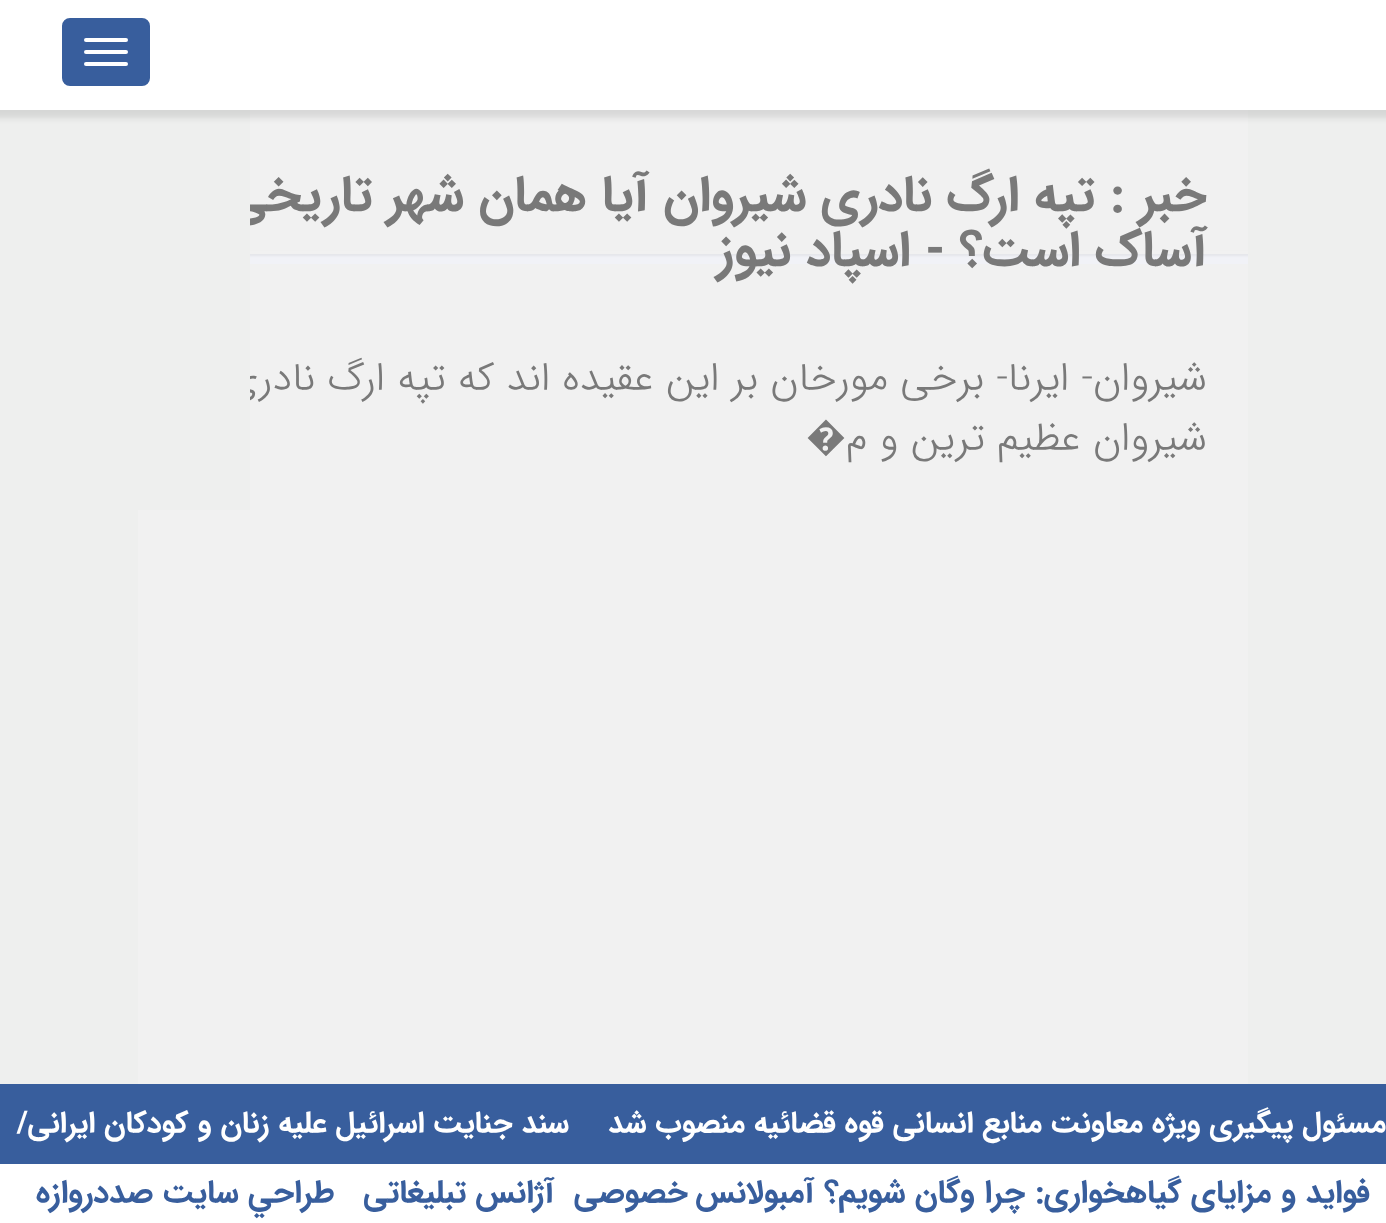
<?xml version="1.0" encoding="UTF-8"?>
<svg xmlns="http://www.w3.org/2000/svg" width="1386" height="1223">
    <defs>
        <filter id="blur1" x="-50%" y="-200%" width="200%" height="500%"><feGaussianBlur stdDeviation="1"/></filter>
        <filter id="blur2" x="-50%" y="-200%" width="200%" height="500%"><feGaussianBlur stdDeviation="3"/></filter>
    </defs>
    <rect width="100%" height="100%" fill="#F1F1F1"/>
    <rect x="250" y="254" width="998" height="10" fill="#F1F2F7"/>
    <rect x="0" y="252" width="1386" height="4" rx="2" fill="#000000" fill-opacity="0.05" filter="url(#blur1)"/>
    <rect x="1248" y="110" width="138" height="974" fill="#EEEFEE"/>
    <text x="1207" y="210" font-family="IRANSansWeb" font-size="50" font-weight="700" direction="rtl" fill="#797979">خبر : تپه ارگ نادری شیروان آیا همان شهر تاریخی</text>
    <text x="1207" y="390" font-family="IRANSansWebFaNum" font-size="40" font-weight="300" direction="rtl" fill="#797979">شیروان- ایرنا- برخی مورخان بر این عقیده اند که تپه ارگ نادری</text>
    <rect x="138" y="110" width="112" height="400" fill="#EEEFEE"/>
    <rect x="0" y="110" width="138" height="974" fill="#EEEFEE"/>
    <rect x="-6" y="-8" width="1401" height="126" fill="#000000" fill-opacity="0.1" filter="url(#blur2)"/>
    <rect x="0" y="0" width="1386" height="110" fill="#FFFFFF"/>
    <rect x="63" y="19" width="86" height="66" rx="7" fill="#385E9D" stroke="#385E9D" stroke-width="2"/>
    <rect x="84" y="38" width="44" height="4" rx="2" fill="#FFFFFF"/>
    <rect x="84" y="50" width="44" height="4" rx="2" fill="#FFFFFF"/>
    <rect x="84" y="62" width="44" height="4" rx="2" fill="#FFFFFF"/>
    <rect x="250" y="251" width="998" height="3" fill="#F1F1F1"/>
    <text x="1207" y="265" font-family="IRANSansWeb" font-size="50" font-weight="700" direction="rtl" fill="#797979">آساک است؟ - اسپاد نیوز</text>
    <text x="1207" y="450" font-family="IRANSansWebFaNum" font-size="40" font-weight="300" direction="rtl" fill="#797979">شیروان عظیم ترین و م</text>
    <text x="846" y="450" font-family="Open Sans" font-size="40" direction="rtl" fill="#797979">�</text>
    <rect x="0" y="1084" width="1386" height="80" fill="#385E9D"/>
    <text x="1386" y="1132" font-family="IRANSansWeb" font-size="30" font-weight="700" direction="rtl" fill="#FFFFFF">مسئول پیگیری ویژه معاونت منابع انسانی قوه قضائیه منصوب شد</text>
    <text x="569" y="1132" font-family="IRANSansWeb" font-size="30" font-weight="700" direction="rtl" fill="#FFFFFF">سند جنایت اسرائیل علیه زنان و کودکان ایرانی/</text>
    <rect x="0" y="1164" width="1386" height="59" fill="#FFFFFF"/>
    <text x="1370" y="1202" font-family="IRANSansWeb" font-size="32" font-weight="700" direction="rtl" fill="#385E9D">فواید و مزایای گیاهخواری: چرا وگان شویم؟</text>
    <text x="814" y="1202" word-spacing="-2" font-family="IRANSansWeb" font-size="32" font-weight="700" direction="rtl" fill="#385E9D">آمبولانس خصوصی</text>
    <text x="554" y="1202" font-family="IRANSansWeb" font-size="32" font-weight="700" direction="rtl" fill="#385E9D">آژانس تبلیغاتی</text>
    <text x="335" y="1202" font-family="IRANSansWeb" font-size="32" font-weight="700" direction="rtl" fill="#385E9D">طراحي سايت صددروازه</text>
</svg>
